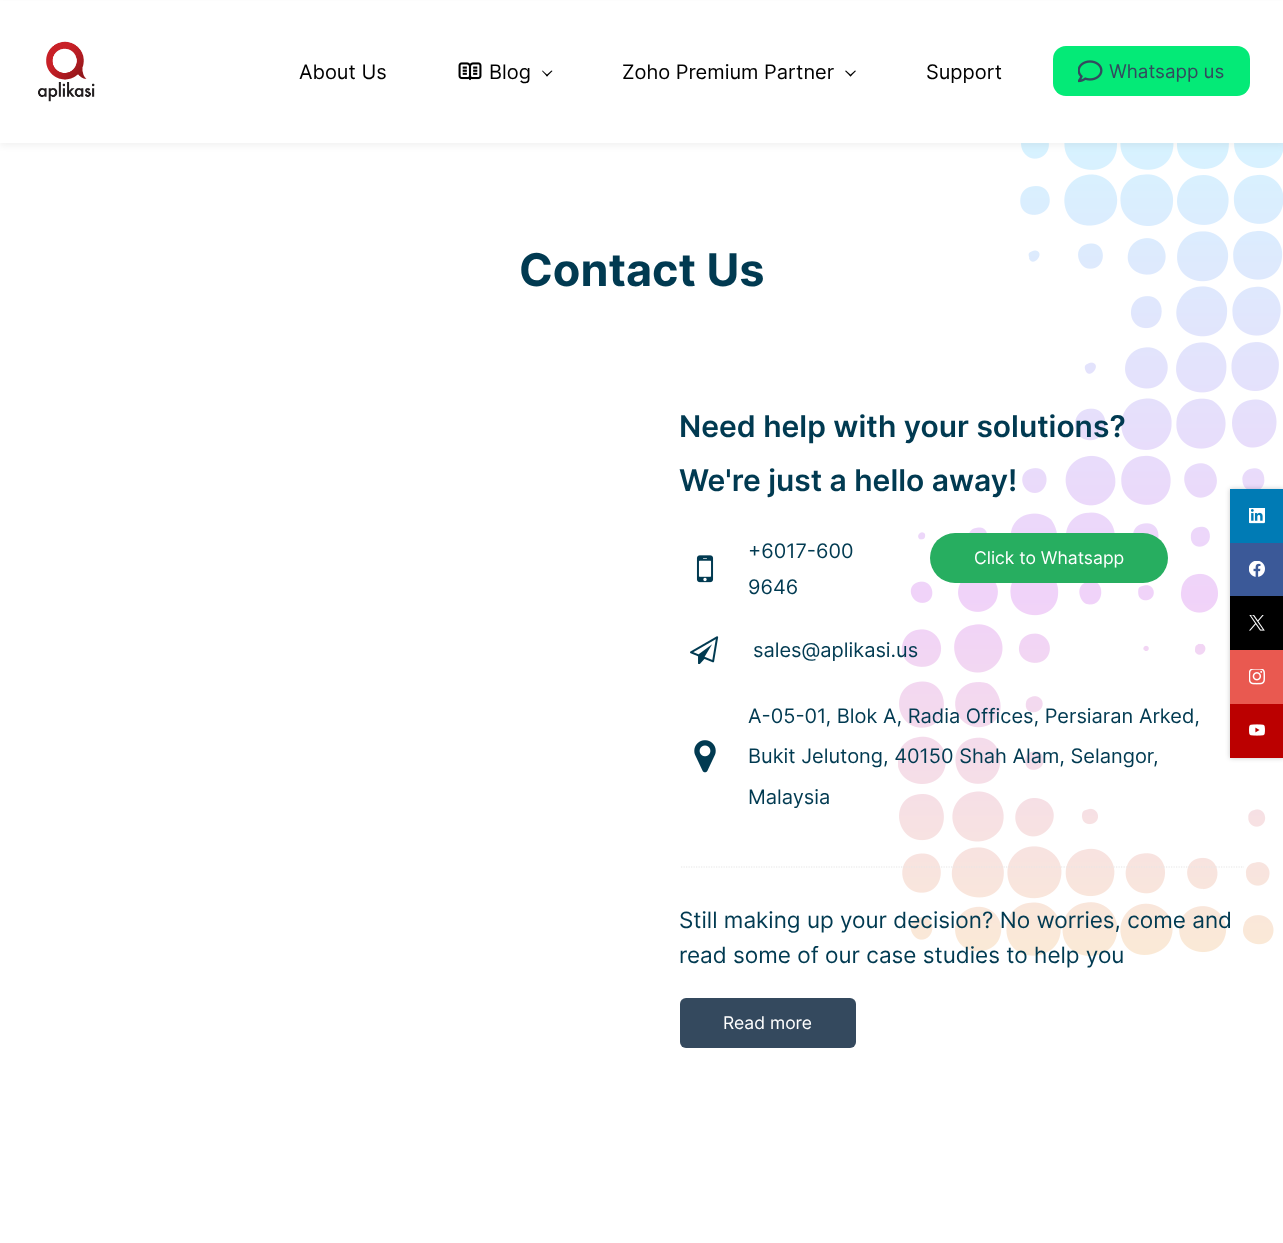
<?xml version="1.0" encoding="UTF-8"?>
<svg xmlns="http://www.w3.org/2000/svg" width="1283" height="1243">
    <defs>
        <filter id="blur1" x="-50%" y="-200%" width="200%" height="500%"><feGaussianBlur stdDeviation="3"/></filter>
        <filter id="blur2" x="-50%" y="-200%" width="200%" height="500%"><feGaussianBlur stdDeviation="2.5"/></filter>
        <clipPath id="clip1"><rect x="680" y="841" width="564" height="37"/></clipPath>
    </defs>
    <rect width="100%" height="100%" fill="#FFFFFF"/>
    <image x="898" y="143" width="385" height="813" href="img_09.png"/>
    <rect x="0" y="4" width="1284" height="142" fill="#000000" fill-opacity="0.05" filter="url(#blur1)"/>
    <rect x="0" y="1" width="1283" height="142" fill="#FFFFFF"/>
    <image x="38" y="41" width="57" height="61" href="img_01.png"/>
    <text x="299" y="79" font-family="Inter" font-size="20" fill="#000000">About Us</text>
    <image x="458" y="62" width="24" height="19" href="img_02.png"/>
    <text x="489" y="79" font-family="Inter" font-size="20" fill="#000000">Blog</text>
    <path d="M 552.5 71 L 547 76.5 L 546 75.5 L 551.5 70.5 Z" fill="#000000"/>
    <path d="M 548 75.5 L 547 76.5 L 542 71 L 542.5 70.5 Z" fill="#000000"/>
    <text x="622" y="79" font-family="Inter" font-size="20" fill="#000000">Zoho Premium Partner</text>
    <path d="M 856 71 L 850.5 76.5 L 849.5 75.5 L 855 70.5 Z" fill="#000000"/>
    <path d="M 851.5 75.5 L 850.5 76.5 L 845 71 L 846 70.5 Z" fill="#000000"/>
    <text x="926" y="79" font-family="Inter" font-size="20" fill="#000000">Support</text>
    <rect x="1053" y="46" width="197" height="50" rx="13" fill="#04EA77"/>
    <image x="1078" y="60" width="25" height="23" href="img_03.png"/>
    <text x="1109" y="78" font-family="Inter" font-size="18.75" fill="#34495E">Whatsapp us</text>
    <rect x="1230" y="489" width="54" height="269" fill="#000000" fill-opacity="0.21" filter="url(#blur2)"/>
    <rect x="1230" y="489" width="53" height="54" fill="#007BB5"/>
    <image x="1249" y="508" width="16" height="16" href="img_04.png"/>
    <rect x="1230" y="543" width="53" height="53" fill="#3B5998"/>
    <image x="1249" y="561" width="16" height="16" href="img_05.png"/>
    <rect x="1230" y="596" width="53" height="54" fill="#000000"/>
    <image x="1249" y="615" width="16" height="16" href="img_06.png"/>
    <rect x="1230" y="650" width="53" height="54" fill="#E95950"/>
    <image x="1249" y="669" width="16" height="16" href="img_07.png"/>
    <rect x="1230" y="704" width="53" height="54" fill="#BB0000"/>
    <image x="1249" y="724" width="16" height="12" href="img_08.png"/>
    <text x="519" y="286" font-family="Inter" font-size="45" font-weight="700" fill="#013A51">Contact Us</text>
    <text font-family="Inter" font-size="30" font-weight="600" fill="#013A51">
        <tspan x="679" y="437">Need help with your solutions?</tspan>
        <tspan x="679" y="491">We're just a hello away!</tspan>
    </text>
    <image x="696" y="555" width="18" height="28" href="img_10.png"/>
    <text font-family="Inter" font-size="20" fill="#013A51">
        <tspan x="748" y="558">+6017-600</tspan>
        <tspan x="748" y="594">9646</tspan>
    </text>
    <rect x="930" y="533" width="238" height="50" rx="25" fill="#27AE60"/>
    <text x="974" y="564" font-family="Inter" font-size="17.5" fill="#FFFFFF">Click to Whatsapp</text>
    <image x="690" y="636" width="29" height="28" href="img_11.png"/>
    <text x="753" y="657" font-family="Inter" font-size="20" fill="#013A51">sales@aplikasi.us</text>
    <image x="694" y="740" width="22" height="33" href="img_12.png"/>
    <text x="748" y="723" font-family="Inter" font-size="20" fill="#013A51">A-05-01, Blok A, Radia Offices, Persiaran Arked,</text>
    <text x="748" y="763" font-family="Inter" font-size="20" fill="#013A51">Bukit Jelutong, 40150 Shah Alam, Selangor,</text>
    <text x="748" y="804" font-family="Inter" font-size="20" fill="#013A51">Malaysia</text>
    <g clip-path="url(#clip1)">
        <path d="M -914 867 H 961" fill="none" stroke="#E5E5E5" stroke-width="1.2" stroke-dasharray="1.25 1.25"/>
        <path d="M 961 867 H 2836" fill="none" stroke="#E5E5E5" stroke-width="1.2" stroke-dasharray="1.25 1.25"/>
    </g>
    <text font-family="Inter" font-size="22.5" fill="#013A51">
        <tspan x="679" y="928">Still making up your decision? No worries, come and</tspan>
        <tspan x="679" y="963">read some of our case studies to help you</tspan>
    </text>
    <rect x="680" y="998" width="176" height="50" rx="6" fill="#34495E"/>
    <text x="723" y="1029" font-family="Inter" font-size="17.5" fill="#FFFFFF">Read more</text>
</svg>
